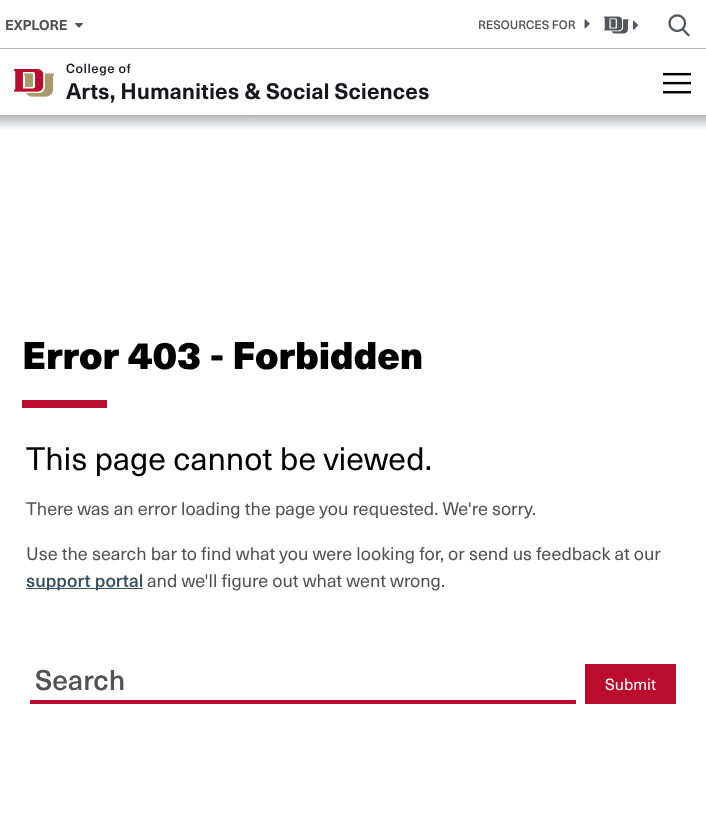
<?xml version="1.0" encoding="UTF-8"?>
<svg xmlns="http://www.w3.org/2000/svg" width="706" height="827">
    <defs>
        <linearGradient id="g1" gradientUnits="userSpaceOnUse" x1="353" y1="115" x2="353" y2="145"><stop offset="0" stop-color="#B5B7BA"/><stop offset="0.5" stop-color="#FFFFFF"/></linearGradient>
    </defs>
    <rect width="100%" height="100%" fill="#FFFFFF"/>
    <rect x="0" y="48" width="706" height="1" fill="#B6B6B6"/>
    <text x="5" y="30" font-family="'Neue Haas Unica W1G'" font-size="14" font-weight="700" fill="#525252">EXPLORE</text>
    <image x="75" y="23" width="8" height="5" href="img_01.png"/>
    <text x="478" y="29" font-family="'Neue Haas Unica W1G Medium'" font-size="12" font-weight="500" fill="#54565B">RESOURCES FOR</text>
    <image x="584" y="19" width="6" height="10" href="img_02.png"/>
    <image x="604" y="16" width="25" height="18" href="img_03.png"/>
    <image x="632" y="20" width="6" height="10" href="img_04.png"/>
    <image x="668" y="14" width="22" height="23" href="img_05.png"/>
    <image x="14" y="69" width="40" height="28" href="img_06.png"/>
    <text x="66" y="73" font-family="'Neue Haas Unica W1G Medium'" font-size="13" font-weight="500" letter-spacing="0.5" fill="#18171E">College of</text>
    <text x="66" y="99" font-family="'Neue Haas Unica W1G'" font-size="22" font-weight="700" fill="#18171E">Arts, Humanities &amp; Social Sciences</text>
    <image x="663" y="72" width="28" height="22" href="img_07.png"/>
    <rect x="0" y="115" width="706" height="14" fill="url(#g1)"/>
    <text x="22" y="369" font-family="'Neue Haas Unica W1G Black'" font-size="38" font-weight="900" fill="#000000">Error 403 - Forbidden</text>
    <rect x="22" y="400" width="85" height="8" fill="#BA0C2F"/>
    <text x="26" y="470" font-family="'Neue Haas Unica W1G'" font-size="32" fill="#000000">This page cannot be viewed.</text>
    <text x="26" y="515" font-family="'Neue Haas Unica W1G'" font-size="18" fill="#525252">There was an error loading the page you requested. We're sorry.</text>
    <text x="26" y="560" font-family="'Neue Haas Unica W1G'" font-size="18" fill="#525252">Use the search bar to find what you were looking for, or send us feedback at our</text>
    <rect x="26" y="588" width="117" height="1" fill="#375060"/>
    <text x="26" y="587" font-family="'Neue Haas Unica W1G Medium'" font-size="18" font-weight="500" fill="#375060">support portal</text>
    <text x="147" y="587" font-family="'Neue Haas Unica W1G'" font-size="18" fill="#525252">and we'll figure out what went wrong.</text>
    <rect x="30" y="700" width="546" height="4" fill="#BA0C2F"/>
    <text x="35" y="690" font-family="'Neue Haas Unica W1G Medium'" font-size="28" font-weight="500" fill="#525252">Search</text>
    <rect x="585" y="664" width="91" height="40" fill="#BA0C2F"/>
    <text x="605" y="690" font-family="'Neue Haas Unica W1G'" font-size="16" fill="#FFFFFF">Submit</text>
</svg>
